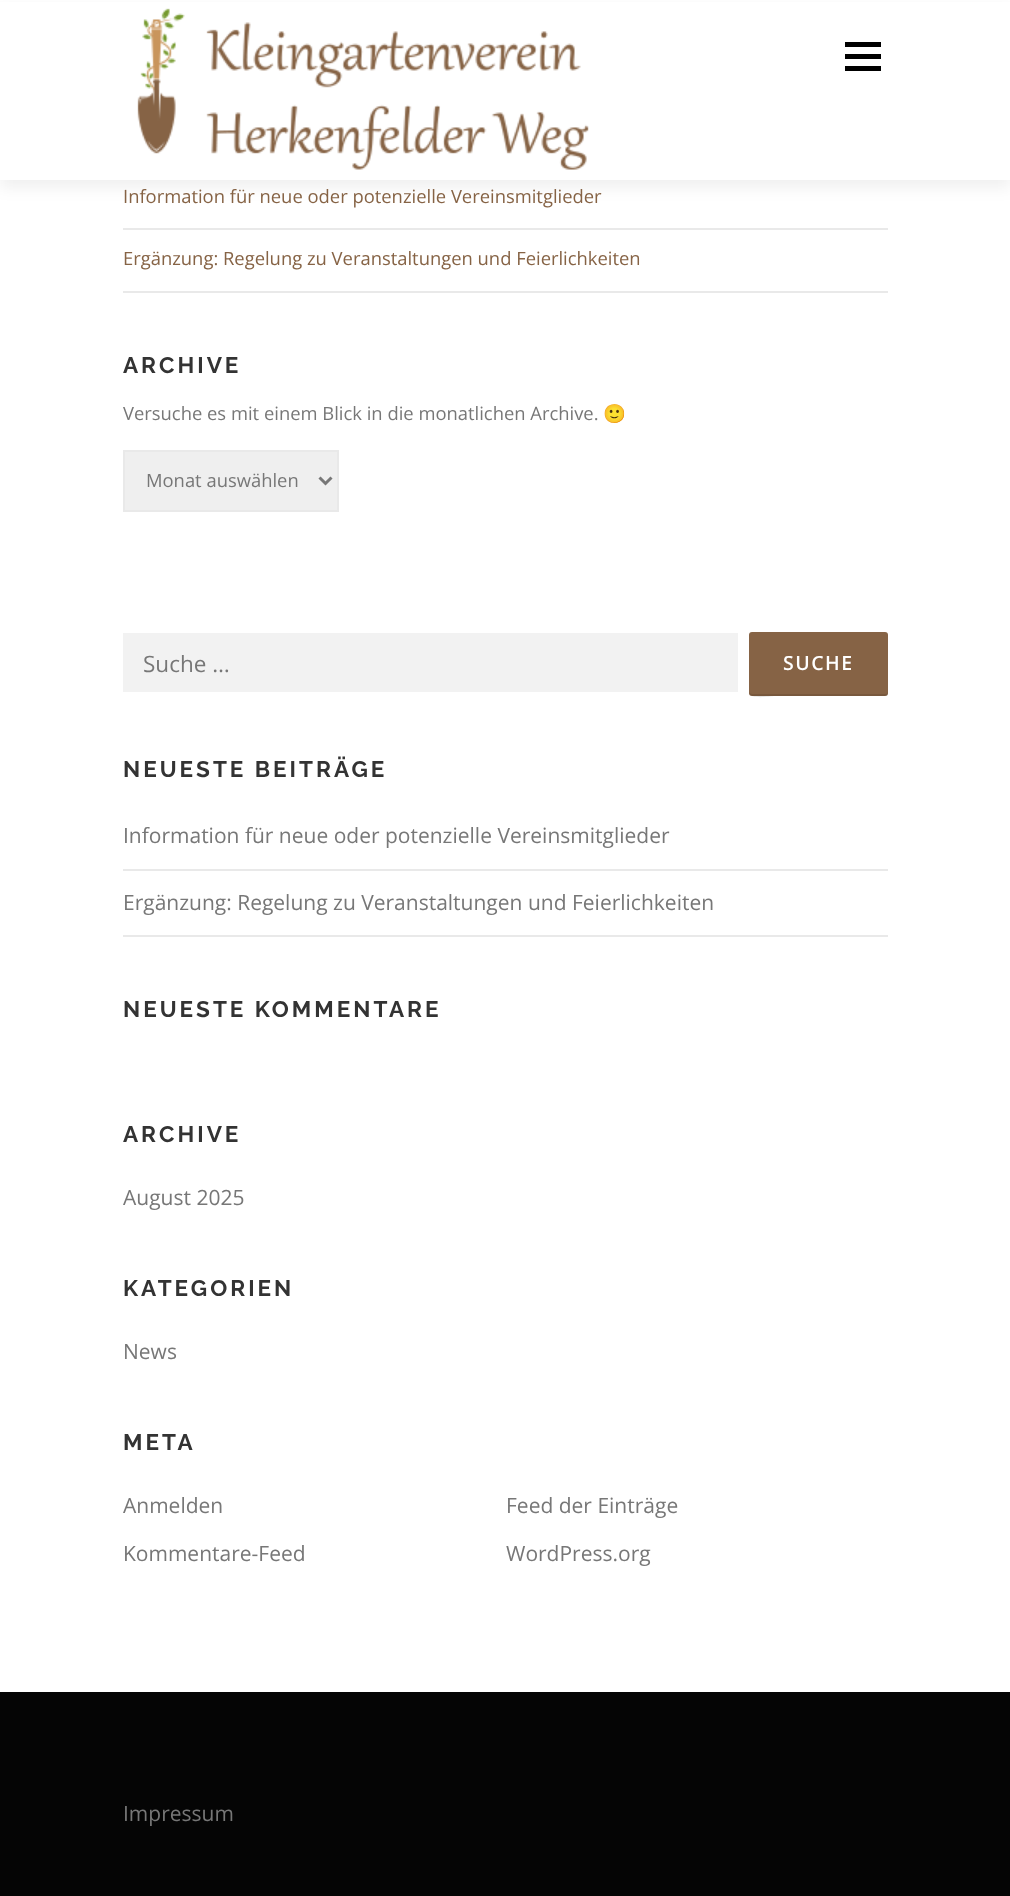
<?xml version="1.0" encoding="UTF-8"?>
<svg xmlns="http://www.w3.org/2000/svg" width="1010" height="1896">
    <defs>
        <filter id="blur1" x="-50%" y="-200%" width="200%" height="500%"><feGaussianBlur stdDeviation="7.5"/></filter>
    </defs>
    <rect width="100%" height="100%" fill="#FFFFFF"/>
    <rect x="0" y="8" width="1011" height="180" fill="#323232" fill-opacity="0.06" filter="url(#blur1)"/>
    <rect x="0" y="2" width="1010" height="178" fill="#FFFFFF"/>
    <image x="137" y="8" width="452" height="162" href="img_01.png"/>
    <rect x="845" y="54" width="36" height="5" fill="#000000"/>
    <rect x="845" y="42" width="36" height="5" fill="#000000"/>
    <rect x="845" y="66" width="36" height="5" fill="#000000"/>
    <rect x="123" y="228" width="765" height="2" fill="#E9E9E9"/>
    <text x="123" y="203" font-family="Open Sans" font-size="18.4" fill="#866345">Information für neue oder potenzielle Vereinsmitglieder</text>
    <rect x="123" y="291" width="765" height="2" fill="#E9E9E9"/>
    <text x="123" y="265" font-family="Open Sans" font-size="18.4" fill="#866345">Ergänzung: Regelung zu Veranstaltungen und Feierlichkeiten</text>
    <text x="123" y="373" font-family="Raleway" font-size="22.5" font-weight="700" letter-spacing="3" fill="#333333">ARCHIVE</text>
    <text x="123" y="420" font-family="Open Sans" font-size="18.4" fill="#777777">Versuche es mit einem Blick in die monatlichen Archive.</text>
    <text x="603" y="420" font-family="Noto Color Emoji" font-size="18.4" fill="#777777">🙂</text>
    <rect x="124" y="451" width="214" height="60" fill="#EFEFEF" stroke="#E9E9E9" stroke-width="2"/>
    <path d="M 319.5 477.5 L 325.5 483.5 L 331.5 477.5" fill="none" stroke="#777777" stroke-width="3"/>
    <text x="146" y="487" font-family="Open Sans" font-size="18.4" fill="#777777">Monat auswählen</text>
    <rect x="123" y="633" width="615" height="59" fill="#F2F2F2"/>
    <text x="143" y="672" font-family="Open Sans" font-size="22.5" fill="#777777">Suche …</text>
    <rect x="749" y="632" width="139" height="64" rx="3" fill="#866345"/>
    <path d="M 749 693 C 750 700 773 696 774 696 H 886 C 888 696 888 694 888 692 C 888 693 887 694 885 694 H 752 Z" fill="#000000" fill-opacity="0.1"/>
    <text x="783" y="670" font-family="Open Sans" font-size="19.5" font-weight="600" letter-spacing="1.5" fill="#FFFFFF">SUCHE</text>
    <text x="123" y="777" font-family="Raleway" font-size="22.5" font-weight="700" letter-spacing="3" fill="#333333">NEUESTE BEITRÄGE</text>
    <rect x="123" y="869" width="765" height="2" fill="#E9E9E9"/>
    <text x="123" y="843" font-family="Open Sans" font-size="21" fill="#777777">Information für neue oder potenzielle Vereinsmitglieder</text>
    <rect x="123" y="935" width="765" height="2" fill="#E9E9E9"/>
    <text x="123" y="910" font-family="Open Sans" font-size="21" fill="#777777">Ergänzung: Regelung zu Veranstaltungen und Feierlichkeiten</text>
    <text x="123" y="1017" font-family="Raleway" font-size="22.5" font-weight="700" letter-spacing="3" fill="#333333">NEUESTE KOMMENTARE</text>
    <text x="123" y="1142" font-family="Raleway" font-size="22.5" font-weight="700" letter-spacing="3" fill="#333333">ARCHIVE</text>
    <text x="123" y="1205" font-family="Open Sans" font-size="21" fill="#777777">August 2025</text>
    <text x="123" y="1296" font-family="Raleway" font-size="22.5" font-weight="700" letter-spacing="3" fill="#333333">KATEGORIEN</text>
    <text x="123" y="1359" font-family="Open Sans" font-size="21" fill="#777777">News</text>
    <text x="123" y="1450" font-family="Raleway" font-size="22.5" font-weight="700" letter-spacing="3" fill="#333333">META</text>
    <text x="123" y="1513" font-family="Open Sans" font-size="21" fill="#777777">Anmelden</text>
    <text x="506" y="1513" font-family="Open Sans" font-size="21" fill="#777777">Feed der Einträge</text>
    <text x="123" y="1561" font-family="Open Sans" font-size="21" fill="#777777">Kommentare-Feed</text>
    <text x="506" y="1561" font-family="Open Sans" font-size="21" fill="#777777">WordPress.org</text>
    <rect x="0" y="1692" width="1010" height="204" fill="#050505"/>
    <text x="123" y="1821" font-family="Open Sans" font-size="21" fill="#777777">Impressum</text>
</svg>
